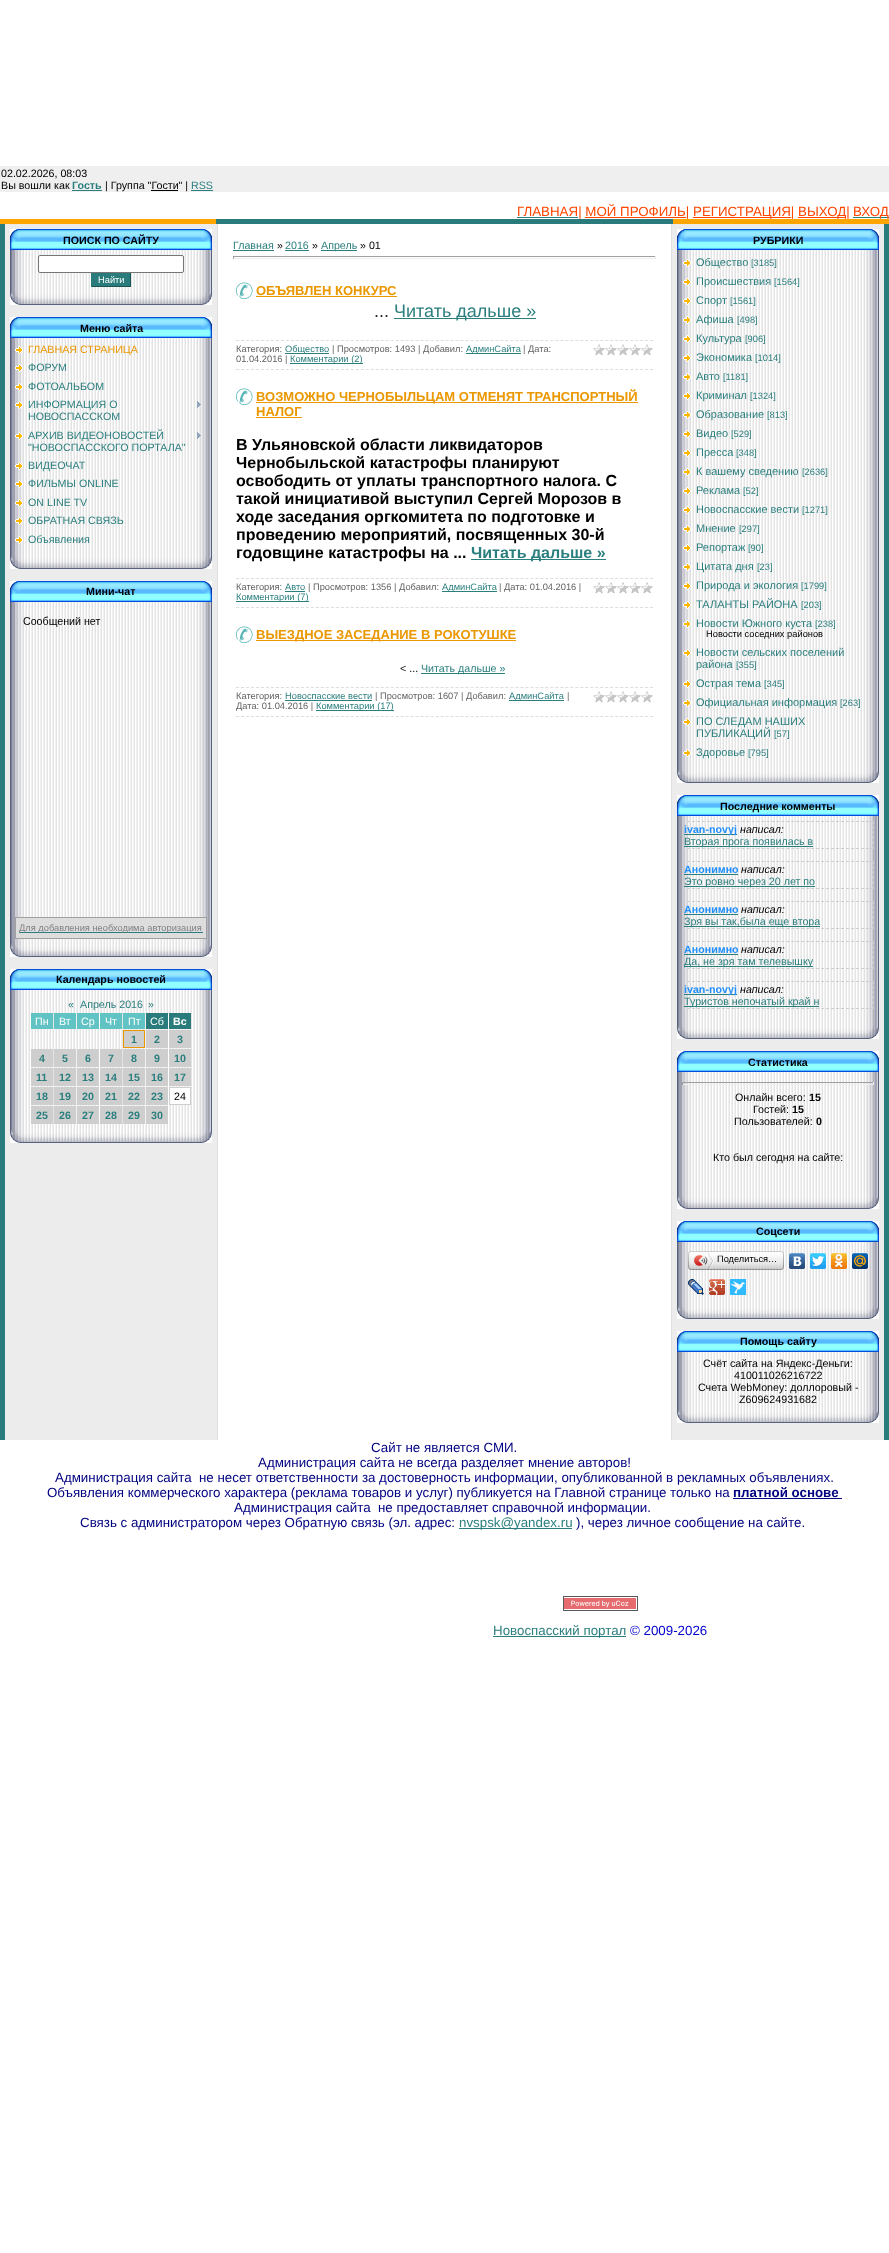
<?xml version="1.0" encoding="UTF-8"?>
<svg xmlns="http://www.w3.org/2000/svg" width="889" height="2253">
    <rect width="100%" height="100%" fill="#FFFFFF"/>
    <rect x="0" y="166" width="889" height="26" fill="#EFEFEF"/>
    <text font-family="Liberation Sans" font-size="10.7" fill="#000000">
        <tspan x="1" y="177">02.02.2026, 08:03</tspan>
        <tspan x="1" y="189">Вы вошли как</tspan>
    </text>
    <text x="72" y="189" font-family="Liberation Sans" font-size="10.7" font-weight="700" fill="#2B7E7E">Гость</text>
    <rect x="72" y="190" width="30" height="1" fill="#2B7E7E"/>
    <text x="105" y="189" font-family="Liberation Sans" font-size="10.7" fill="#000000">| Группа "Гости" |</text>
    <text x="191" y="189" font-family="Liberation Sans" font-size="10.7" fill="#2B7E7E">RSS</text>
    <rect x="191" y="190" width="22" height="1" fill="#2B7E7E"/>
    <rect x="151" y="190" width="27" height="1" fill="#000000"/>
    <rect x="517" y="217" width="61" height="1" fill="#2B7E7E"/>
    <text x="517" y="216" font-family="Liberation Sans" font-size="13.33" fill="#FF4500">ГЛАВНАЯ| МОЙ ПРОФИЛЬ|</text>
    <rect x="693" y="217" width="98" height="1" fill="#FF4500"/>
    <text x="693" y="216" font-family="Liberation Sans" font-size="13.33" fill="#FF4500">РЕГИСТРАЦИЯ|</text>
    <rect x="798" y="217" width="48" height="1" fill="#FF4500"/>
    <text x="798" y="216" font-family="Liberation Sans" font-size="13.33" fill="#FF4500">ВЫХОД|</text>
    <rect x="853" y="217" width="36" height="1" fill="#2B7E7E"/>
    <text x="853" y="216" font-family="Liberation Sans" font-size="13.33" fill="#FF4500">ВХОД</text>
    <rect x="585" y="217" width="101" height="1" fill="#FF4500"/>
    <rect x="0" y="219" width="216" height="5" fill="#FFA500"/>
    <rect x="216" y="219" width="457" height="5" fill="#2A7C7C"/>
    <rect x="673" y="219" width="216" height="5" fill="#FFA500"/>
    <rect x="5" y="224" width="212" height="1216" fill="#ECECEC"/>
    <rect x="217" y="224" width="1" height="1216" fill="#E0E0E0"/>
    <rect x="0" y="224" width="5" height="1216" fill="#2A7C7C"/>
    <image x="10" y="229" width="202" height="21" href="img_01.png"/>
    <text x="63" y="244" font-family="Liberation Sans" font-size="10.7" font-weight="700" fill="#000000">ПОИСК ПО САЙТУ</text>
    <image x="10" y="250" width="202" height="42" href="img_02.png"/>
    <rect x="38.5" y="255.5" width="145" height="17" rx="1.5" fill="#FFFFFF" stroke="#767676"/>
    <rect x="92" y="273" width="38" height="13" fill="#2A7C7C"/>
    <rect x="130" y="273" width="1" height="14" fill="#1C5353"/>
    <rect x="91" y="286" width="40" height="1" fill="#1C5353"/>
    <rect x="91" y="273" width="1" height="14" fill="#2A7C7C"/>
    <text x="98" y="283" font-family="Liberation Sans" font-size="9.3" fill="#FFFFFF">Найти</text>
    <image x="10" y="292" width="202" height="13" href="img_03.png"/>
    <image x="10" y="317" width="202" height="21" href="img_01.png"/>
    <text x="80" y="332" font-family="Liberation Sans" font-size="10.7" font-weight="700" fill="#000000">Меню сайта</text>
    <image x="10" y="338" width="202" height="218" href="img_04.png"/>
    <image x="15" y="346" width="8" height="8" href="img_05.png"/>
    <text x="28" y="353" font-family="Liberation Sans" font-size="10.7" fill="#EB9700">ГЛАВНАЯ СТРАНИЦА</text>
    <image x="15" y="364" width="8" height="8" href="img_05.png"/>
    <text x="28" y="371" font-family="Liberation Sans" font-size="10.7" fill="#2B7E7E">ФОРУМ</text>
    <image x="15" y="383" width="8" height="8" href="img_05.png"/>
    <text x="28" y="390" font-family="Liberation Sans" font-size="10.7" fill="#2B7E7E">ФОТОАЛЬБОМ</text>
    <image x="15" y="401" width="8" height="8" href="img_05.png"/>
    <text x="28" y="408" font-family="Liberation Sans" font-size="10.7" fill="#2B7E7E">ИНФОРМАЦИЯ О</text>
    <image x="197" y="401" width="4" height="7" href="img_06.png"/>
    <text x="28" y="420" font-family="Liberation Sans" font-size="10.7" fill="#2B7E7E">НОВОСПАССКОМ</text>
    <image x="15" y="432" width="8" height="8" href="img_05.png"/>
    <text x="28" y="439" font-family="Liberation Sans" font-size="10.7" fill="#2B7E7E">АРХИВ ВИДЕОНОВОСТЕЙ</text>
    <image x="197" y="432" width="4" height="7" href="img_06.png"/>
    <text x="28" y="451" font-family="Liberation Sans" font-size="10.7" fill="#2B7E7E">"НОВОСПАССКОГО ПОРТАЛА"</text>
    <image x="15" y="462" width="8" height="8" href="img_05.png"/>
    <text x="28" y="469" font-family="Liberation Sans" font-size="10.7" fill="#2B7E7E">ВИДЕОЧАТ</text>
    <image x="15" y="480" width="8" height="8" href="img_05.png"/>
    <text x="28" y="487" font-family="Liberation Sans" font-size="10.7" fill="#2B7E7E">ФИЛЬМЫ ОNLINE</text>
    <image x="15" y="499" width="8" height="8" href="img_05.png"/>
    <text x="28" y="506" font-family="Liberation Sans" font-size="10.7" fill="#2B7E7E">ON LINE TV</text>
    <image x="15" y="517" width="8" height="8" href="img_05.png"/>
    <text x="28" y="524" font-family="Liberation Sans" font-size="10.7" fill="#2B7E7E">ОБРАТНАЯ СВЯЗЬ</text>
    <image x="15" y="536" width="8" height="8" href="img_05.png"/>
    <text x="28" y="543" font-family="Liberation Sans" font-size="10.7" fill="#2B7E7E">Объявления</text>
    <image x="10" y="556" width="202" height="13" href="img_03.png"/>
    <image x="10" y="581" width="202" height="21" href="img_01.png"/>
    <text x="86" y="595" font-family="Liberation Sans" font-size="10.7" font-weight="700" fill="#000000">Мини-чат</text>
    <image x="10" y="602" width="202" height="342" href="img_07.png"/>
    <image x="23" y="616" width="78" height="11" href="img_08.png"/>
    <rect x="15.5" y="917.5" width="191" height="21" fill="#DDDDDD" stroke="#A0A0A0"/>
    <rect x="19" y="932" width="184" height="1" fill="#2B7E7E"/>
    <text x="19" y="931" font-family="Liberation Sans" font-size="9.3" fill="#828282">Для добавления необходима авторизация</text>
    <image x="10" y="944" width="202" height="13" href="img_03.png"/>
    <image x="10" y="969" width="202" height="21" href="img_01.png"/>
    <text x="56" y="983" font-family="Liberation Sans" font-size="10.7" font-weight="700" fill="#000000">Календарь новостей</text>
    <image x="10" y="990" width="202" height="140" href="img_09.png"/>
    <text x="68" y="1008" font-family="Liberation Sans" font-size="10.7" fill="#2B7E7E">«</text>
    <text x="80" y="1008" font-family="Liberation Sans" font-size="10.7" fill="#2B7E7E">Апрель 2016</text>
    <text x="148" y="1008" font-family="Liberation Sans" font-size="10.7" fill="#2B7E7E">»</text>
    <rect x="31" y="1013" width="22" height="16" fill="#61C3C3"/>
    <text x="35" y="1025" font-family="Liberation Sans" font-size="10.7" fill="#FFFFFF">Пн</text>
    <rect x="54" y="1013" width="22" height="16" fill="#61C3C3"/>
    <text x="59" y="1025" font-family="Liberation Sans" font-size="10.7" fill="#FFFFFF">Вт</text>
    <rect x="77" y="1013" width="22" height="16" fill="#61C3C3"/>
    <text x="81" y="1025" font-family="Liberation Sans" font-size="10.7" fill="#FFFFFF">Ср</text>
    <rect x="100" y="1013" width="22" height="16" fill="#61C3C3"/>
    <text x="105" y="1025" font-family="Liberation Sans" font-size="10.7" fill="#FFFFFF">Чт</text>
    <rect x="123" y="1013" width="22" height="16" fill="#61C3C3"/>
    <text x="128" y="1025" font-family="Liberation Sans" font-size="10.7" fill="#FFFFFF">Пт</text>
    <rect x="146" y="1013" width="22" height="16" fill="#2A7C7C"/>
    <text x="150" y="1025" font-family="Liberation Sans" font-size="10.7" fill="#FFFFFF">Сб</text>
    <rect x="169" y="1013" width="22" height="16" fill="#2A7C7C"/>
    <text x="173" y="1025" font-family="Liberation Sans" font-size="10.7" font-weight="700" fill="#FFFFFF">Вс</text>
    <rect x="123.5" y="1030.5" width="21" height="17" fill="#CECECE" stroke="#EB9700"/>
    <text x="131" y="1043" font-family="Liberation Sans" font-size="10.7" font-weight="700" fill="#2B7E7E">1</text>
    <rect x="146" y="1030" width="22" height="18" fill="#CECECE"/>
    <text x="154" y="1043" font-family="Liberation Sans" font-size="10.7" font-weight="700" fill="#2B7E7E">2</text>
    <rect x="169" y="1030" width="22" height="18" fill="#CECECE"/>
    <text x="177" y="1043" font-family="Liberation Sans" font-size="10.7" font-weight="700" fill="#2B7E7E">3</text>
    <rect x="31" y="1049" width="22" height="18" fill="#CECECE"/>
    <text x="39" y="1062" font-family="Liberation Sans" font-size="10.7" font-weight="700" fill="#2B7E7E">4</text>
    <rect x="54" y="1049" width="22" height="18" fill="#CECECE"/>
    <text x="62" y="1062" font-family="Liberation Sans" font-size="10.7" font-weight="700" fill="#2B7E7E">5</text>
    <rect x="77" y="1049" width="22" height="18" fill="#CECECE"/>
    <text x="85" y="1062" font-family="Liberation Sans" font-size="10.7" font-weight="700" fill="#2B7E7E">6</text>
    <rect x="100" y="1049" width="22" height="18" fill="#CECECE"/>
    <text x="108" y="1062" font-family="Liberation Sans" font-size="10.7" font-weight="700" fill="#2B7E7E">7</text>
    <rect x="123" y="1049" width="22" height="18" fill="#CECECE"/>
    <text x="131" y="1062" font-family="Liberation Sans" font-size="10.7" font-weight="700" fill="#2B7E7E">8</text>
    <rect x="146" y="1049" width="22" height="18" fill="#CECECE"/>
    <text x="154" y="1062" font-family="Liberation Sans" font-size="10.7" font-weight="700" fill="#2B7E7E">9</text>
    <rect x="169" y="1049" width="22" height="18" fill="#CECECE"/>
    <text x="174" y="1062" font-family="Liberation Sans" font-size="10.7" font-weight="700" fill="#2B7E7E">10</text>
    <rect x="31" y="1068" width="22" height="18" fill="#CECECE"/>
    <text x="36" y="1081" font-family="Liberation Sans" font-size="10.7" font-weight="700" fill="#2B7E7E">11</text>
    <rect x="54" y="1068" width="22" height="18" fill="#CECECE"/>
    <text x="59" y="1081" font-family="Liberation Sans" font-size="10.7" font-weight="700" fill="#2B7E7E">12</text>
    <rect x="77" y="1068" width="22" height="18" fill="#CECECE"/>
    <text x="82" y="1081" font-family="Liberation Sans" font-size="10.7" font-weight="700" fill="#2B7E7E">13</text>
    <rect x="100" y="1068" width="22" height="18" fill="#CECECE"/>
    <text x="105" y="1081" font-family="Liberation Sans" font-size="10.7" font-weight="700" fill="#2B7E7E">14</text>
    <rect x="123" y="1068" width="22" height="18" fill="#CECECE"/>
    <text x="128" y="1081" font-family="Liberation Sans" font-size="10.7" font-weight="700" fill="#2B7E7E">15</text>
    <rect x="146" y="1068" width="22" height="18" fill="#CECECE"/>
    <text x="151" y="1081" font-family="Liberation Sans" font-size="10.7" font-weight="700" fill="#2B7E7E">16</text>
    <rect x="169" y="1068" width="22" height="18" fill="#CECECE"/>
    <text x="174" y="1081" font-family="Liberation Sans" font-size="10.7" font-weight="700" fill="#2B7E7E">17</text>
    <rect x="31" y="1087" width="22" height="18" fill="#CECECE"/>
    <text x="36" y="1100" font-family="Liberation Sans" font-size="10.7" font-weight="700" fill="#2B7E7E">18</text>
    <rect x="54" y="1087" width="22" height="18" fill="#CECECE"/>
    <text x="59" y="1100" font-family="Liberation Sans" font-size="10.7" font-weight="700" fill="#2B7E7E">19</text>
    <rect x="77" y="1087" width="22" height="18" fill="#CECECE"/>
    <text x="82" y="1100" font-family="Liberation Sans" font-size="10.7" font-weight="700" fill="#2B7E7E">20</text>
    <rect x="100" y="1087" width="22" height="18" fill="#CECECE"/>
    <text x="105" y="1100" font-family="Liberation Sans" font-size="10.7" font-weight="700" fill="#2B7E7E">21</text>
    <rect x="123" y="1087" width="22" height="18" fill="#CECECE"/>
    <text x="128" y="1100" font-family="Liberation Sans" font-size="10.7" font-weight="700" fill="#2B7E7E">22</text>
    <rect x="146" y="1087" width="22" height="18" fill="#CECECE"/>
    <text x="151" y="1100" font-family="Liberation Sans" font-size="10.7" font-weight="700" fill="#2B7E7E">23</text>
    <rect x="170" y="1088" width="19" height="16" fill="#FFFFFF"/>
    <rect x="169.5" y="1087.5" width="21" height="17" fill="none" stroke="#CECECE"/>
    <text x="174" y="1100" font-family="Liberation Sans" font-size="10.7" fill="#000000">24</text>
    <rect x="31" y="1106" width="22" height="18" fill="#CECECE"/>
    <text x="36" y="1119" font-family="Liberation Sans" font-size="10.7" font-weight="700" fill="#2B7E7E">25</text>
    <rect x="54" y="1106" width="22" height="18" fill="#CECECE"/>
    <text x="59" y="1119" font-family="Liberation Sans" font-size="10.7" font-weight="700" fill="#2B7E7E">26</text>
    <rect x="77" y="1106" width="22" height="18" fill="#CECECE"/>
    <text x="82" y="1119" font-family="Liberation Sans" font-size="10.7" font-weight="700" fill="#2B7E7E">27</text>
    <rect x="100" y="1106" width="22" height="18" fill="#CECECE"/>
    <text x="105" y="1119" font-family="Liberation Sans" font-size="10.7" font-weight="700" fill="#2B7E7E">28</text>
    <rect x="123" y="1106" width="22" height="18" fill="#CECECE"/>
    <text x="128" y="1119" font-family="Liberation Sans" font-size="10.7" font-weight="700" fill="#2B7E7E">29</text>
    <rect x="146" y="1106" width="22" height="18" fill="#CECECE"/>
    <text x="151" y="1119" font-family="Liberation Sans" font-size="10.7" font-weight="700" fill="#2B7E7E">30</text>
    <image x="10" y="1130" width="202" height="13" href="img_03.png"/>
    <text x="233" y="249" font-family="Liberation Sans" font-size="10.7" fill="#2B7E7E">Главная</text>
    <rect x="233" y="250" width="41" height="1" fill="#2B7E7E"/>
    <text x="277" y="249" font-family="Liberation Sans" font-size="10.7" fill="#000000">»</text>
    <text x="285" y="249" font-family="Liberation Sans" font-size="10.7" fill="#2B7E7E">2016</text>
    <rect x="285" y="250" width="24" height="1" fill="#2B7E7E"/>
    <text x="312" y="249" font-family="Liberation Sans" font-size="10.7" fill="#000000">»</text>
    <rect x="321" y="250" width="36" height="1" fill="#2B7E7E"/>
    <text x="321" y="249" font-family="Liberation Sans" font-size="10.7" fill="#2B7E7E">Апрель</text>
    <text x="360" y="249" font-family="Liberation Sans" font-size="10.7" fill="#000000">» 01</text>
    <rect x="233" y="256" width="423" height="1" fill="#9F9F9F"/>
    <rect x="655" y="256" width="1" height="3" fill="#EEEEEE"/>
    <rect x="233" y="258" width="423" height="1" fill="#EEEEEE"/>
    <rect x="233" y="256" width="1" height="3" fill="#9F9F9F"/>
    <image x="236" y="282" width="17" height="17" href="img_10.png"/>
    <text x="256" y="295" font-family="Liberation Sans" font-size="13" font-weight="700" fill="#EB9700">ОБЪЯВЛЕН КОНКУРС</text>
    <rect x="256" y="296" width="141" height="1" fill="#EB9700"/>
    <text x="374" y="317" font-family="Liberation Sans" font-size="18" fill="#212121">...</text>
    <rect x="394" y="318" width="142" height="1" fill="#2B7E7E"/>
    <text x="394" y="317" font-family="Liberation Sans" font-size="18" fill="#2B7E7E">Читать дальше »</text>
    <path d="M 236 340.5 H 653" fill="none" stroke="#DDDDDD" stroke-dasharray="3 1.99"/>
    <path d="M 236 369.5 H 653" fill="none" stroke="#DDDDDD" stroke-dasharray="3 1.99"/>
    <text x="236" y="352" font-family="Liberation Sans" font-size="9.3" fill="#636363">Категория:</text>
    <rect x="285" y="353" width="44" height="1" fill="#2B7E7E"/>
    <text x="285" y="352" font-family="Liberation Sans" font-size="9.3" fill="#2B7E7E">Общество</text>
    <text x="332" y="352" font-family="Liberation Sans" font-size="9.3" fill="#636363">| Просмотров: 1493 | Добавил:</text>
    <rect x="466" y="353" width="55" height="1" fill="#2B7E7E"/>
    <text x="466" y="352" font-family="Liberation Sans" font-size="9.3" fill="#2B7E7E">АдминСайта</text>
    <text x="523" y="352" font-family="Liberation Sans" font-size="9.3" fill="#636363">| Дата:</text>
    <image x="593" y="344" width="60" height="12" href="img_11.png"/>
    <text x="236" y="362" font-family="Liberation Sans" font-size="9.3" fill="#636363">01.04.2016 |</text>
    <rect x="290" y="363" width="73" height="1" fill="#2B7E7E"/>
    <text x="290" y="362" font-family="Liberation Sans" font-size="9.3" fill="#2B7E7E">Комментарии (2)</text>
    <image x="236" y="388" width="17" height="17" href="img_10.png"/>
    <rect x="256" y="402" width="382" height="1" fill="#EB9700"/>
    <text font-family="Liberation Sans" font-size="13" font-weight="700" fill="#EB9700">
        <tspan x="256" y="401">ВОЗМОЖНО ЧЕРНОБЫЛЬЦАМ ОТМЕНЯТ ТРАНСПОРТНЫЙ</tspan>
        <tspan x="256" y="416">НАЛОГ</tspan>
    </text>
    <rect x="256" y="417" width="46" height="1" fill="#EB9700"/>
    <text font-family="Liberation Sans" font-size="16" font-weight="700" fill="#000000">
        <tspan x="236" y="450">В Ульяновской области ликвидаторов</tspan>
        <tspan x="236" y="468">Чернобыльской катастрофы планируют</tspan>
        <tspan x="236" y="486">освободить от уплаты транспортного налога. С</tspan>
        <tspan x="236" y="504">такой инициативой выступил Сергей Морозов в</tspan>
        <tspan x="236" y="522">ходе заседания оргкомитета по подготовке и</tspan>
        <tspan x="236" y="540">проведению мероприятий, посвященных 30-й</tspan>
        <tspan x="236" y="558">годовщине катастрофы на ...</tspan>
    </text>
    <rect x="471" y="559" width="135" height="1" fill="#2B7E7E"/>
    <text x="471" y="558" font-family="Liberation Sans" font-size="16" font-weight="700" fill="#2B7E7E">Читать дальше »</text>
    <path d="M 236 578.5 H 653" fill="none" stroke="#DDDDDD" stroke-dasharray="3 1.99"/>
    <path d="M 236 607.5 H 653" fill="none" stroke="#DDDDDD" stroke-dasharray="3 1.99"/>
    <text x="236" y="590" font-family="Liberation Sans" font-size="9.3" fill="#636363">Категория:</text>
    <text x="285" y="590" font-family="Liberation Sans" font-size="9.3" fill="#2B7E7E">Авто</text>
    <rect x="285" y="591" width="20" height="1" fill="#2B7E7E"/>
    <text x="308" y="590" font-family="Liberation Sans" font-size="9.3" fill="#636363">| Просмотров: 1356 | Добавил:</text>
    <rect x="442" y="591" width="55" height="1" fill="#2B7E7E"/>
    <text x="442" y="590" font-family="Liberation Sans" font-size="9.3" fill="#2B7E7E">АдминСайта</text>
    <text x="499" y="590" font-family="Liberation Sans" font-size="9.3" fill="#636363">| Дата: 01.04.2016 |</text>
    <image x="593" y="582" width="60" height="12" href="img_11.png"/>
    <rect x="236" y="601" width="73" height="1" fill="#2B7E7E"/>
    <text x="236" y="600" font-family="Liberation Sans" font-size="9.3" fill="#2B7E7E">Комментарии (7)</text>
    <image x="236" y="626" width="17" height="17" href="img_10.png"/>
    <rect x="256" y="640" width="260" height="1" fill="#EB9700"/>
    <text x="256" y="639" font-family="Liberation Sans" font-size="13" font-weight="700" fill="#EB9700">ВЫЕЗДНОЕ ЗАСЕДАНИЕ В РОКОТУШКЕ</text>
    <text x="400" y="672" font-family="Liberation Sans" font-size="10.7" fill="#000000">&lt; ...</text>
    <rect x="421" y="673" width="84" height="1" fill="#2B7E7E"/>
    <text x="421" y="672" font-family="Liberation Sans" font-size="10.7" fill="#2B7E7E">Читать дальше »</text>
    <path d="M 236 687.5 H 653" fill="none" stroke="#DDDDDD" stroke-dasharray="3 1.99"/>
    <path d="M 236 716.5 H 653" fill="none" stroke="#DDDDDD" stroke-dasharray="3 1.99"/>
    <text x="236" y="699" font-family="Liberation Sans" font-size="9.3" fill="#636363">Категория:</text>
    <text x="285" y="699" font-family="Liberation Sans" font-size="9.3" fill="#2B7E7E">Новоспасские вести</text>
    <rect x="285" y="700" width="87" height="1" fill="#2B7E7E"/>
    <text x="375" y="699" font-family="Liberation Sans" font-size="9.3" fill="#636363">| Просмотров: 1607 | Добавил:</text>
    <rect x="509" y="700" width="55" height="1" fill="#2B7E7E"/>
    <text x="509" y="699" font-family="Liberation Sans" font-size="9.3" fill="#2B7E7E">АдминСайта</text>
    <text x="567" y="699" font-family="Liberation Sans" font-size="9.3" fill="#636363">|</text>
    <image x="593" y="691" width="60" height="12" href="img_11.png"/>
    <text x="236" y="709" font-family="Liberation Sans" font-size="9.3" fill="#636363">Дата: 01.04.2016 |</text>
    <rect x="316" y="710" width="78" height="1" fill="#2B7E7E"/>
    <text x="316" y="709" font-family="Liberation Sans" font-size="9.3" fill="#2B7E7E">Комментарии (17)</text>
    <rect x="672" y="224" width="212" height="1216" fill="#ECECEC"/>
    <rect x="884" y="224" width="5" height="1216" fill="#2A7C7C"/>
    <rect x="671" y="224" width="1" height="1216" fill="#E0E0E0"/>
    <image x="677" y="229" width="202" height="21" href="img_01.png"/>
    <text x="753" y="244" font-family="Liberation Sans" font-size="10.7" font-weight="700" fill="#000000">РУБРИКИ</text>
    <image x="677" y="250" width="202" height="520" href="img_12.png"/>
    <image x="683" y="259" width="8" height="8" href="img_13.png"/>
    <text x="696" y="266" font-family="Liberation Sans" font-size="11" fill="#2B7E7E">Общество</text>
    <text x="751" y="266" font-family="Liberation Sans" font-size="9.3" fill="#2B7E7E">[3185]</text>
    <image x="683" y="278" width="8" height="8" href="img_13.png"/>
    <text x="696" y="285" font-family="Liberation Sans" font-size="11" fill="#2B7E7E">Происшествия</text>
    <text x="774" y="285" font-family="Liberation Sans" font-size="9.3" fill="#2B7E7E">[1564]</text>
    <image x="683" y="297" width="8" height="8" href="img_13.png"/>
    <text x="696" y="304" font-family="Liberation Sans" font-size="11" fill="#2B7E7E">Спорт</text>
    <text x="730" y="304" font-family="Liberation Sans" font-size="9.3" fill="#2B7E7E">[1561]</text>
    <image x="683" y="316" width="8" height="8" href="img_13.png"/>
    <text x="696" y="323" font-family="Liberation Sans" font-size="11" fill="#2B7E7E">Афиша</text>
    <text x="737" y="323" font-family="Liberation Sans" font-size="9.3" fill="#2B7E7E">[498]</text>
    <image x="683" y="335" width="8" height="8" href="img_13.png"/>
    <text x="696" y="342" font-family="Liberation Sans" font-size="11" fill="#2B7E7E">Культура</text>
    <text x="745" y="342" font-family="Liberation Sans" font-size="9.3" fill="#2B7E7E">[906]</text>
    <image x="683" y="354" width="8" height="8" href="img_13.png"/>
    <text x="696" y="361" font-family="Liberation Sans" font-size="11" fill="#2B7E7E">Экономика</text>
    <text x="755" y="361" font-family="Liberation Sans" font-size="9.3" fill="#2B7E7E">[1014]</text>
    <image x="683" y="373" width="8" height="8" href="img_13.png"/>
    <text x="696" y="380" font-family="Liberation Sans" font-size="11" fill="#2B7E7E">Авто</text>
    <text x="723" y="380" font-family="Liberation Sans" font-size="9.3" fill="#2B7E7E">[1181]</text>
    <image x="683" y="392" width="8" height="8" href="img_13.png"/>
    <text x="696" y="399" font-family="Liberation Sans" font-size="11" fill="#2B7E7E">Криминал</text>
    <text x="750" y="399" font-family="Liberation Sans" font-size="9.3" fill="#2B7E7E">[1324]</text>
    <image x="683" y="411" width="8" height="8" href="img_13.png"/>
    <text x="696" y="418" font-family="Liberation Sans" font-size="11" fill="#2B7E7E">Образование</text>
    <text x="767" y="418" font-family="Liberation Sans" font-size="9.3" fill="#2B7E7E">[813]</text>
    <image x="683" y="430" width="8" height="8" href="img_13.png"/>
    <text x="696" y="437" font-family="Liberation Sans" font-size="11" fill="#2B7E7E">Видео</text>
    <text x="731" y="437" font-family="Liberation Sans" font-size="9.3" fill="#2B7E7E">[529]</text>
    <image x="683" y="449" width="8" height="8" href="img_13.png"/>
    <text x="696" y="456" font-family="Liberation Sans" font-size="11" fill="#2B7E7E">Пресса</text>
    <text x="736" y="456" font-family="Liberation Sans" font-size="9.3" fill="#2B7E7E">[348]</text>
    <image x="683" y="468" width="8" height="8" href="img_13.png"/>
    <text x="696" y="475" font-family="Liberation Sans" font-size="11" fill="#2B7E7E">К вашему сведению</text>
    <text x="802" y="475" font-family="Liberation Sans" font-size="9.3" fill="#2B7E7E">[2636]</text>
    <image x="683" y="487" width="8" height="8" href="img_13.png"/>
    <text x="696" y="494" font-family="Liberation Sans" font-size="11" fill="#2B7E7E">Реклама</text>
    <text x="743" y="494" font-family="Liberation Sans" font-size="9.3" fill="#2B7E7E">[52]</text>
    <image x="683" y="506" width="8" height="8" href="img_13.png"/>
    <text x="696" y="513" font-family="Liberation Sans" font-size="11" fill="#2B7E7E">Новоспасские вести</text>
    <text x="802" y="513" font-family="Liberation Sans" font-size="9.3" fill="#2B7E7E">[1271]</text>
    <image x="683" y="525" width="8" height="8" href="img_13.png"/>
    <text x="696" y="532" font-family="Liberation Sans" font-size="11" fill="#2B7E7E">Мнение</text>
    <text x="739" y="532" font-family="Liberation Sans" font-size="9.3" fill="#2B7E7E">[297]</text>
    <image x="683" y="544" width="8" height="8" href="img_13.png"/>
    <text x="696" y="551" font-family="Liberation Sans" font-size="11" fill="#2B7E7E">Репортаж</text>
    <text x="748" y="551" font-family="Liberation Sans" font-size="9.3" fill="#2B7E7E">[90]</text>
    <image x="683" y="563" width="8" height="8" href="img_13.png"/>
    <text x="696" y="570" font-family="Liberation Sans" font-size="11" fill="#2B7E7E">Цитата дня</text>
    <text x="757" y="570" font-family="Liberation Sans" font-size="9.3" fill="#2B7E7E">[23]</text>
    <image x="683" y="582" width="8" height="8" href="img_13.png"/>
    <text x="696" y="589" font-family="Liberation Sans" font-size="11" fill="#2B7E7E">Природа и экология</text>
    <text x="801" y="589" font-family="Liberation Sans" font-size="9.3" fill="#2B7E7E">[1799]</text>
    <image x="683" y="601" width="8" height="8" href="img_13.png"/>
    <text x="696" y="608" font-family="Liberation Sans" font-size="11" fill="#2B7E7E">ТАЛАНТЫ РАЙОНА</text>
    <text x="801" y="608" font-family="Liberation Sans" font-size="9.3" fill="#2B7E7E">[203]</text>
    <image x="683" y="620" width="8" height="8" href="img_13.png"/>
    <text x="696" y="627" font-family="Liberation Sans" font-size="11" fill="#2B7E7E">Новости Южного куста</text>
    <text x="815" y="627" font-family="Liberation Sans" font-size="9.3" fill="#2B7E7E">[238]</text>
    <text x="706" y="637" font-family="Liberation Sans" font-size="9.3" fill="#000000">Новости соседних районов</text>
    <image x="683" y="649" width="8" height="8" href="img_13.png"/>
    <text font-family="Liberation Sans" font-size="11" fill="#2B7E7E">
        <tspan x="696" y="656">Новости сельских поселений</tspan>
        <tspan x="696" y="668">района</tspan>
    </text>
    <text x="736" y="668" font-family="Liberation Sans" font-size="9.3" fill="#2B7E7E">[355]</text>
    <image x="683" y="680" width="8" height="8" href="img_13.png"/>
    <text x="696" y="687" font-family="Liberation Sans" font-size="11" fill="#2B7E7E">Острая тема</text>
    <text x="764" y="687" font-family="Liberation Sans" font-size="9.3" fill="#2B7E7E">[345]</text>
    <image x="683" y="699" width="8" height="8" href="img_13.png"/>
    <text x="696" y="706" font-family="Liberation Sans" font-size="11" fill="#2B7E7E">Официальная информация</text>
    <text x="840" y="706" font-family="Liberation Sans" font-size="9.3" fill="#2B7E7E">[263]</text>
    <image x="683" y="718" width="8" height="8" href="img_13.png"/>
    <text font-family="Liberation Sans" font-size="11" fill="#2B7E7E">
        <tspan x="696" y="725">ПО СЛЕДАМ НАШИХ</tspan>
        <tspan x="696" y="737">ПУБЛИКАЦИЙ</tspan>
    </text>
    <text x="774" y="737" font-family="Liberation Sans" font-size="9.3" fill="#2B7E7E">[57]</text>
    <image x="683" y="749" width="8" height="8" href="img_13.png"/>
    <text x="696" y="756" font-family="Liberation Sans" font-size="11" fill="#2B7E7E">Здоровье</text>
    <text x="748" y="756" font-family="Liberation Sans" font-size="9.3" fill="#2B7E7E">[795]</text>
    <image x="677" y="770" width="202" height="13" href="img_03.png"/>
    <image x="677" y="795" width="202" height="21" href="img_01.png"/>
    <text x="720" y="810" font-family="Liberation Sans" font-size="10.7" font-weight="700" fill="#000000">Последние комменты</text>
    <image x="677" y="816" width="202" height="210" href="img_14.png"/>
    <path d="M 682 821.5 H 874" fill="none" stroke="#CCCCCC" stroke-dasharray="3 1.97"/>
    <path d="M 873.5 821 V 849" fill="none" stroke="#CCCCCC" stroke-dasharray="3 2"/>
    <path d="M 682 848.5 H 874" fill="none" stroke="#CCCCCC" stroke-dasharray="3 1.97"/>
    <path d="M 682.5 821 V 849" fill="none" stroke="#CCCCCC" stroke-dasharray="3 2"/>
    <rect x="684" y="834" width="53" height="1" fill="#2B7E7E"/>
    <text x="684" y="833" font-family="Liberation Sans" font-size="10.7" font-weight="700" fill="#1E90FF">ivan-novyj</text>
    <text x="740" y="833" font-family="Liberation Sans" font-size="10.7" font-style="italic" fill="#000000">написал:</text>
    <rect x="684" y="846" width="129" height="1" fill="#2B7E7E"/>
    <text x="684" y="845" font-family="Liberation Sans" font-size="10.7" fill="#2B7E7E">Вторая прога появилась в</text>
    <path d="M 682 861.5 H 874" fill="none" stroke="#CCCCCC" stroke-dasharray="3 1.97"/>
    <path d="M 873.5 861 V 889" fill="none" stroke="#CCCCCC" stroke-dasharray="3 2"/>
    <path d="M 682 888.5 H 874" fill="none" stroke="#CCCCCC" stroke-dasharray="3 1.97"/>
    <path d="M 682.5 861 V 889" fill="none" stroke="#CCCCCC" stroke-dasharray="3 2"/>
    <text x="684" y="873" font-family="Liberation Sans" font-size="10.7" font-weight="700" fill="#1E90FF">Анонимно</text>
    <rect x="684" y="874" width="54" height="1" fill="#2B7E7E"/>
    <text x="741" y="873" font-family="Liberation Sans" font-size="10.7" font-style="italic" fill="#000000">написал:</text>
    <rect x="684" y="886" width="131" height="1" fill="#2B7E7E"/>
    <text x="684" y="885" font-family="Liberation Sans" font-size="10.7" fill="#2B7E7E">Это ровно через 20 лет по</text>
    <path d="M 682 901.5 H 874" fill="none" stroke="#CCCCCC" stroke-dasharray="3 1.97"/>
    <path d="M 873.5 901 V 929" fill="none" stroke="#CCCCCC" stroke-dasharray="3 2"/>
    <path d="M 682 928.5 H 874" fill="none" stroke="#CCCCCC" stroke-dasharray="3 1.97"/>
    <path d="M 682.5 901 V 929" fill="none" stroke="#CCCCCC" stroke-dasharray="3 2"/>
    <text x="684" y="913" font-family="Liberation Sans" font-size="10.7" font-weight="700" fill="#1E90FF">Анонимно</text>
    <rect x="684" y="914" width="54" height="1" fill="#2B7E7E"/>
    <text x="741" y="913" font-family="Liberation Sans" font-size="10.7" font-style="italic" fill="#000000">написал:</text>
    <rect x="684" y="926" width="136" height="1" fill="#2B7E7E"/>
    <text x="684" y="925" font-family="Liberation Sans" font-size="10.7" fill="#2B7E7E">Зря вы так,была еще втора</text>
    <path d="M 682 941.5 H 874" fill="none" stroke="#CCCCCC" stroke-dasharray="3 1.97"/>
    <path d="M 873.5 941 V 969" fill="none" stroke="#CCCCCC" stroke-dasharray="3 2"/>
    <path d="M 682 968.5 H 874" fill="none" stroke="#CCCCCC" stroke-dasharray="3 1.97"/>
    <path d="M 682.5 941 V 969" fill="none" stroke="#CCCCCC" stroke-dasharray="3 2"/>
    <text x="684" y="953" font-family="Liberation Sans" font-size="10.7" font-weight="700" fill="#1E90FF">Анонимно</text>
    <rect x="684" y="954" width="54" height="1" fill="#2B7E7E"/>
    <text x="741" y="953" font-family="Liberation Sans" font-size="10.7" font-style="italic" fill="#000000">написал:</text>
    <rect x="684" y="966" width="129" height="1" fill="#2B7E7E"/>
    <text x="684" y="965" font-family="Liberation Sans" font-size="10.7" fill="#2B7E7E">Да, не зря там телевышку</text>
    <path d="M 682 981.5 H 874" fill="none" stroke="#CCCCCC" stroke-dasharray="3 1.97"/>
    <path d="M 873.5 981 V 1009" fill="none" stroke="#CCCCCC" stroke-dasharray="3 2"/>
    <path d="M 682 1008.5 H 874" fill="none" stroke="#CCCCCC" stroke-dasharray="3 1.97"/>
    <path d="M 682.5 981 V 1009" fill="none" stroke="#CCCCCC" stroke-dasharray="3 2"/>
    <rect x="684" y="994" width="53" height="1" fill="#2B7E7E"/>
    <text x="684" y="993" font-family="Liberation Sans" font-size="10.7" font-weight="700" fill="#1E90FF">ivan-novyj</text>
    <text x="740" y="993" font-family="Liberation Sans" font-size="10.7" font-style="italic" fill="#000000">написал:</text>
    <rect x="684" y="1006" width="135" height="1" fill="#2B7E7E"/>
    <text x="684" y="1005" font-family="Liberation Sans" font-size="10.7" fill="#2B7E7E">Туристов непочатый край н</text>
    <image x="677" y="1026" width="202" height="13" href="img_03.png"/>
    <image x="677" y="1051" width="202" height="21" href="img_01.png"/>
    <text x="748" y="1066" font-family="Liberation Sans" font-size="10.7" font-weight="700" fill="#000000">Статистика</text>
    <image x="677" y="1072" width="202" height="124" href="img_15.png"/>
    <rect x="682" y="1082" width="192" height="1" fill="#9F9F9F"/>
    <rect x="873" y="1082" width="1" height="3" fill="#EEEEEE"/>
    <rect x="682" y="1084" width="192" height="1" fill="#EEEEEE"/>
    <rect x="682" y="1082" width="1" height="3" fill="#9F9F9F"/>
    <text x="735" y="1101" font-family="Liberation Sans" font-size="10.7" fill="#000000">Онлайн всего:</text>
    <text x="809" y="1101" font-family="Liberation Sans" font-size="10.7" font-weight="700" fill="#000000">15</text>
    <text x="753" y="1113" font-family="Liberation Sans" font-size="10.7" fill="#000000">Гостей:</text>
    <text x="792" y="1113" font-family="Liberation Sans" font-size="10.7" font-weight="700" fill="#000000">15</text>
    <text x="734" y="1125" font-family="Liberation Sans" font-size="10.7" fill="#000000">Пользователей:</text>
    <text x="816" y="1125" font-family="Liberation Sans" font-size="10.7" font-weight="700" fill="#000000">0</text>
    <text x="713" y="1161" font-family="Liberation Sans" font-size="10.7" fill="#000000">Кто был сегодня на сайте:</text>
    <image x="677" y="1196" width="202" height="13" href="img_03.png"/>
    <image x="677" y="1221" width="202" height="21" href="img_01.png"/>
    <text x="756" y="1235" font-family="Liberation Sans" font-size="10.7" font-weight="700" fill="#000000">Соцсети</text>
    <image x="677" y="1242" width="202" height="64" href="img_16.png"/>
    <image x="691" y="1251" width="90" height="19" href="img_17.png"/>
    <image x="688" y="1251" width="3" height="19" href="img_18.png"/>
    <image x="694" y="1252" width="20" height="17" href="img_19.png"/>
    <text x="717" y="1262" font-family="Liberation Sans" font-size="9.25" fill="#000000">Поделиться…</text>
    <image x="781" y="1251" width="3" height="19" href="img_20.png"/>
    <image x="789" y="1253" width="16" height="16" href="img_21.png"/>
    <image x="810" y="1253" width="16" height="16" href="img_22.png"/>
    <image x="831" y="1253" width="16" height="16" href="img_23.png"/>
    <image x="852" y="1253" width="16" height="16" href="img_24.png"/>
    <image x="688" y="1279" width="16" height="16" href="img_25.png"/>
    <image x="709" y="1279" width="16" height="16" href="img_26.png"/>
    <image x="730" y="1279" width="16" height="16" href="img_27.png"/>
    <image x="677" y="1306" width="202" height="13" href="img_03.png"/>
    <image x="677" y="1331" width="202" height="21" href="img_01.png"/>
    <text x="740" y="1345" font-family="Liberation Sans" font-size="10.7" font-weight="700" fill="#000000">Помощь сайту</text>
    <image x="677" y="1352" width="202" height="58" href="img_28.png"/>
    <text x="703" y="1367" font-family="Liberation Sans" font-size="10.7" fill="#000000">Счёт сайта на Яндекс-Деньги:</text>
    <text x="734" y="1379" font-family="Liberation Sans" font-size="10.7" fill="#000000">410011026216722</text>
    <text x="698" y="1391" font-family="Liberation Sans" font-size="10.7" fill="#000000">Счета WebMoney: доллоровый -</text>
    <text x="739" y="1403" font-family="Liberation Sans" font-size="10.7" fill="#000000">Z609624931682</text>
    <image x="677" y="1410" width="202" height="13" href="img_03.png"/>
    <text x="371" y="1452" font-family="Liberation Sans" font-size="13.33" fill="#000080">Сайт не является СМИ.</text>
    <text x="258" y="1467" font-family="Liberation Sans" font-size="13.33" fill="#000080">Администрация сайта не всегда разделяет мнение авторов!</text>
    <text x="55" y="1482" font-family="Liberation Sans" font-size="13.33" fill="#000080" xml:space="preserve">Администрация сайта  не несет ответственности за достоверность информации, опубликованной в рекламных объявлениях.</text>
    <text x="47" y="1497" font-family="Liberation Sans" font-size="13.33" fill="#000080">Объявления коммерческого характера (реклама товаров и услуг) публикуется на Главной странице только на</text>
    <text x="733" y="1497" font-family="Liberation Sans" font-size="13.33" font-weight="700" fill="#000080">платной основе</text>
    <rect x="733" y="1498" width="109" height="1" fill="#000080"/>
    <text x="234" y="1512" font-family="Liberation Sans" font-size="13.33" fill="#000080" xml:space="preserve">Администрация сайта  не предоставляет справочной информации.</text>
    <text x="80" y="1527" font-family="Liberation Sans" font-size="13.33" fill="#000080">Связь с администратором через Обратную связь (эл. адрес:</text>
    <rect x="459" y="1528" width="113" height="1" fill="#2B7E7E"/>
    <text x="459" y="1527" font-family="Liberation Sans" font-size="13.33" fill="#2B7E7E">nvspsk@yandex.ru</text>
    <text x="576" y="1527" font-family="Liberation Sans" font-size="13.33" fill="#000080">), через личное сообщение на сайте.</text>
    <image x="563" y="1596" width="75" height="15" href="img_29.png"/>
    <rect x="493" y="1636" width="133" height="1" fill="#2B7E7E"/>
    <text x="493" y="1635" font-family="Liberation Sans" font-size="13.33" fill="#2B7E7E">Новоспасский портал</text>
    <text x="630" y="1635" font-family="Liberation Sans" font-size="13.33" fill="#0000CD">© 2009-2026</text>
</svg>
